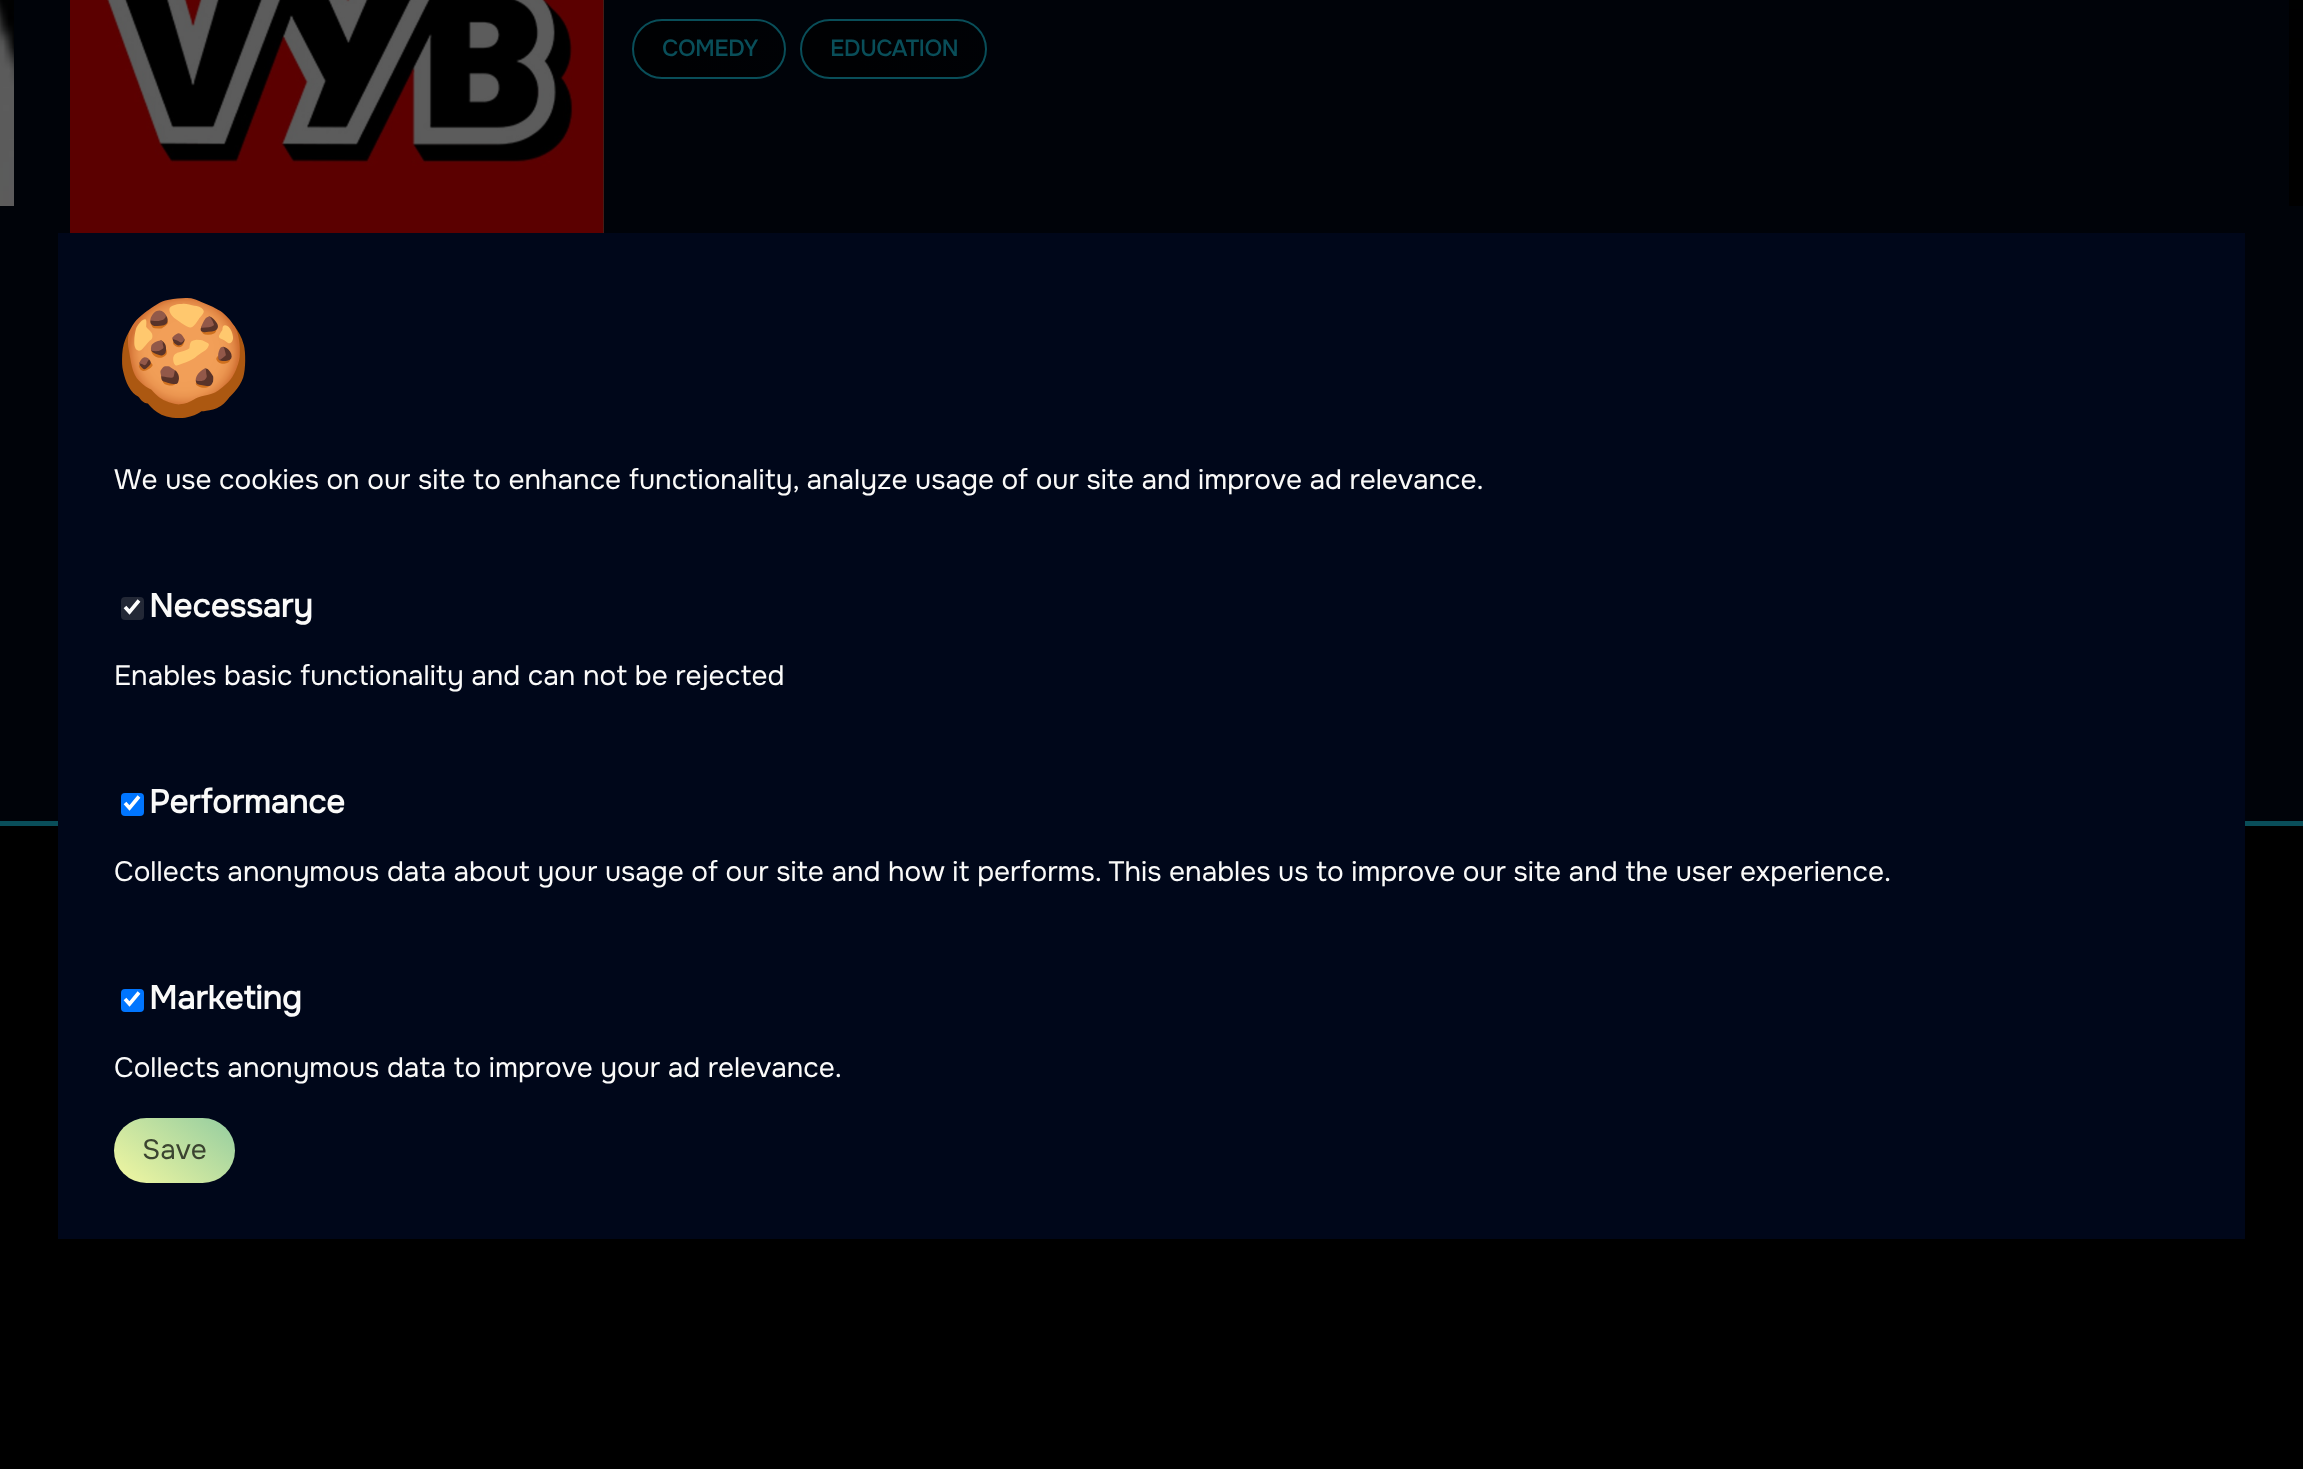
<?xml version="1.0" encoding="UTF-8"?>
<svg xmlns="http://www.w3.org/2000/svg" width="2303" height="1469">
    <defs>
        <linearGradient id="g1" gradientUnits="userSpaceOnUse" x1="1151" y1="-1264" x2="1152" y2="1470"><stop offset="0.04" stop-color="#000B15"/><stop offset="0.15" stop-color="#01070C"/><stop offset="0.5" stop-color="#000309"/></linearGradient>
        <linearGradient id="g2" gradientUnits="userSpaceOnUse" x1="70" y1="71" x2="1138" y2="71"><stop offset="0.14" stop-color="#0F2D2D"/><stop offset="1" stop-color="#57593A"/></linearGradient>
        <clipPath id="clip1"><rect x="632" y="19" width="154" height="60" rx="30"/></clipPath>
        <linearGradient id="g3" gradientUnits="userSpaceOnUse" x1="634" y1="79" x2="932" y2="-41"><stop offset="0.14" stop-color="#000103"/><stop offset="1" stop-color="#000309"/></linearGradient>
        <clipPath id="clip2"><rect x="800" y="19" width="187" height="60" rx="30"/></clipPath>
        <linearGradient id="g4" gradientUnits="userSpaceOnUse" x1="805" y1="85" x2="1159" y2="-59"><stop offset="0.14" stop-color="#000103"/><stop offset="1" stop-color="#000309"/></linearGradient>
        <linearGradient id="g5" gradientUnits="userSpaceOnUse" x1="286" y1="1001" x2="137" y2="1199"><stop offset="0" stop-color="#35A29F"/><stop offset="1" stop-color="#F2F7A1"/></linearGradient>
    </defs>
    <rect width="100%" height="100%" fill="#FFFFFF"/>
    <rect x="0" y="206" width="2303" height="615" fill="url(#g1)"/>
    <image x="0" y="0" width="2303" height="206" href="img_01.png"/>
    <rect x="14" y="0" width="2275" height="206" fill="#000309"/>
    <rect x="603" y="0" width="1" height="233" fill="url(#g2)"/>
    <image x="70" y="0" width="534" height="233" href="img_02.png"/>
    <g clip-path="url(#clip1)">
        <rect x="634" y="21" width="150" height="56" fill="url(#g3)"/>
    </g>
    <rect x="633" y="20" width="152" height="58" rx="29" fill="none" stroke="#094E59" stroke-width="2"/>
    <text x="662" y="56" font-family="Onest" font-size="22.5" font-weight="700" fill="#094E59">COMEDY</text>
    <g clip-path="url(#clip2)">
        <rect x="802" y="21" width="183" height="56" fill="url(#g4)"/>
    </g>
    <rect x="801" y="20" width="185" height="58" rx="29" fill="none" stroke="#094E59" stroke-width="2"/>
    <text x="830" y="56" font-family="Onest" font-size="22.5" font-weight="700" fill="#094E59">EDUCATION</text>
    <rect x="0" y="826" width="2303" height="643" fill="#000000"/>
    <rect x="0" y="821" width="2303" height="5" fill="#094E59"/>
    <rect x="58" y="233" width="2187" height="1006" fill="#00071A"/>
    <text x="114" y="396" font-family="Noto Color Emoji" font-size="112" font-weight="700" fill="#FAFAF9">🍪</text>
    <text x="114" y="489" font-family="Onest" font-size="28" fill="#FAFAF9">We use cookies on our site to enhance functionality, analyze usage of our site and improve ad relevance.</text>
    <rect x="121" y="597" width="23" height="23" rx="4" fill="#232836"/>
    <path d="M 125 607 L 129.5 612 L 139 600.5" fill="none" stroke="#FFFFFF" stroke-width="3.6"/>
    <text x="149" y="617" font-family="Onest" font-size="32.75" font-weight="700" fill="#FAFAF9">Necessary</text>
    <text x="114" y="685" font-family="Onest" font-size="28" fill="#FAFAF9">Enables basic functionality and can not be rejected</text>
    <rect x="121" y="793" width="23" height="23" rx="4" fill="#0075FF"/>
    <path d="M 125 803 L 129.5 808 L 139 796.5" fill="none" stroke="#FFFFFF" stroke-width="3.6"/>
    <text x="149" y="813" font-family="Onest" font-size="32.75" font-weight="700" fill="#FAFAF9">Performance</text>
    <text x="114" y="881" font-family="Onest" font-size="28" fill="#FAFAF9">Collects anonymous data about your usage of our site and how it performs. This enables us to improve our site and the user experience.</text>
    <rect x="121" y="989" width="23" height="23" rx="4" fill="#0075FF"/>
    <path d="M 125 999 L 129.5 1004 L 139 992.5" fill="none" stroke="#FFFFFF" stroke-width="3.6"/>
    <text x="149" y="1009" font-family="Onest" font-size="32.75" font-weight="700" fill="#FAFAF9">Marketing</text>
    <text x="114" y="1077" font-family="Onest" font-size="28" fill="#FAFAF9">Collects anonymous data to improve your ad relevance.</text>
    <rect x="114" y="1118" width="121" height="65" rx="32.5" fill="url(#g5)"/>
    <text x="142" y="1159" font-family="Onest" font-size="28" fill="#3B4430">Save</text>
</svg>
